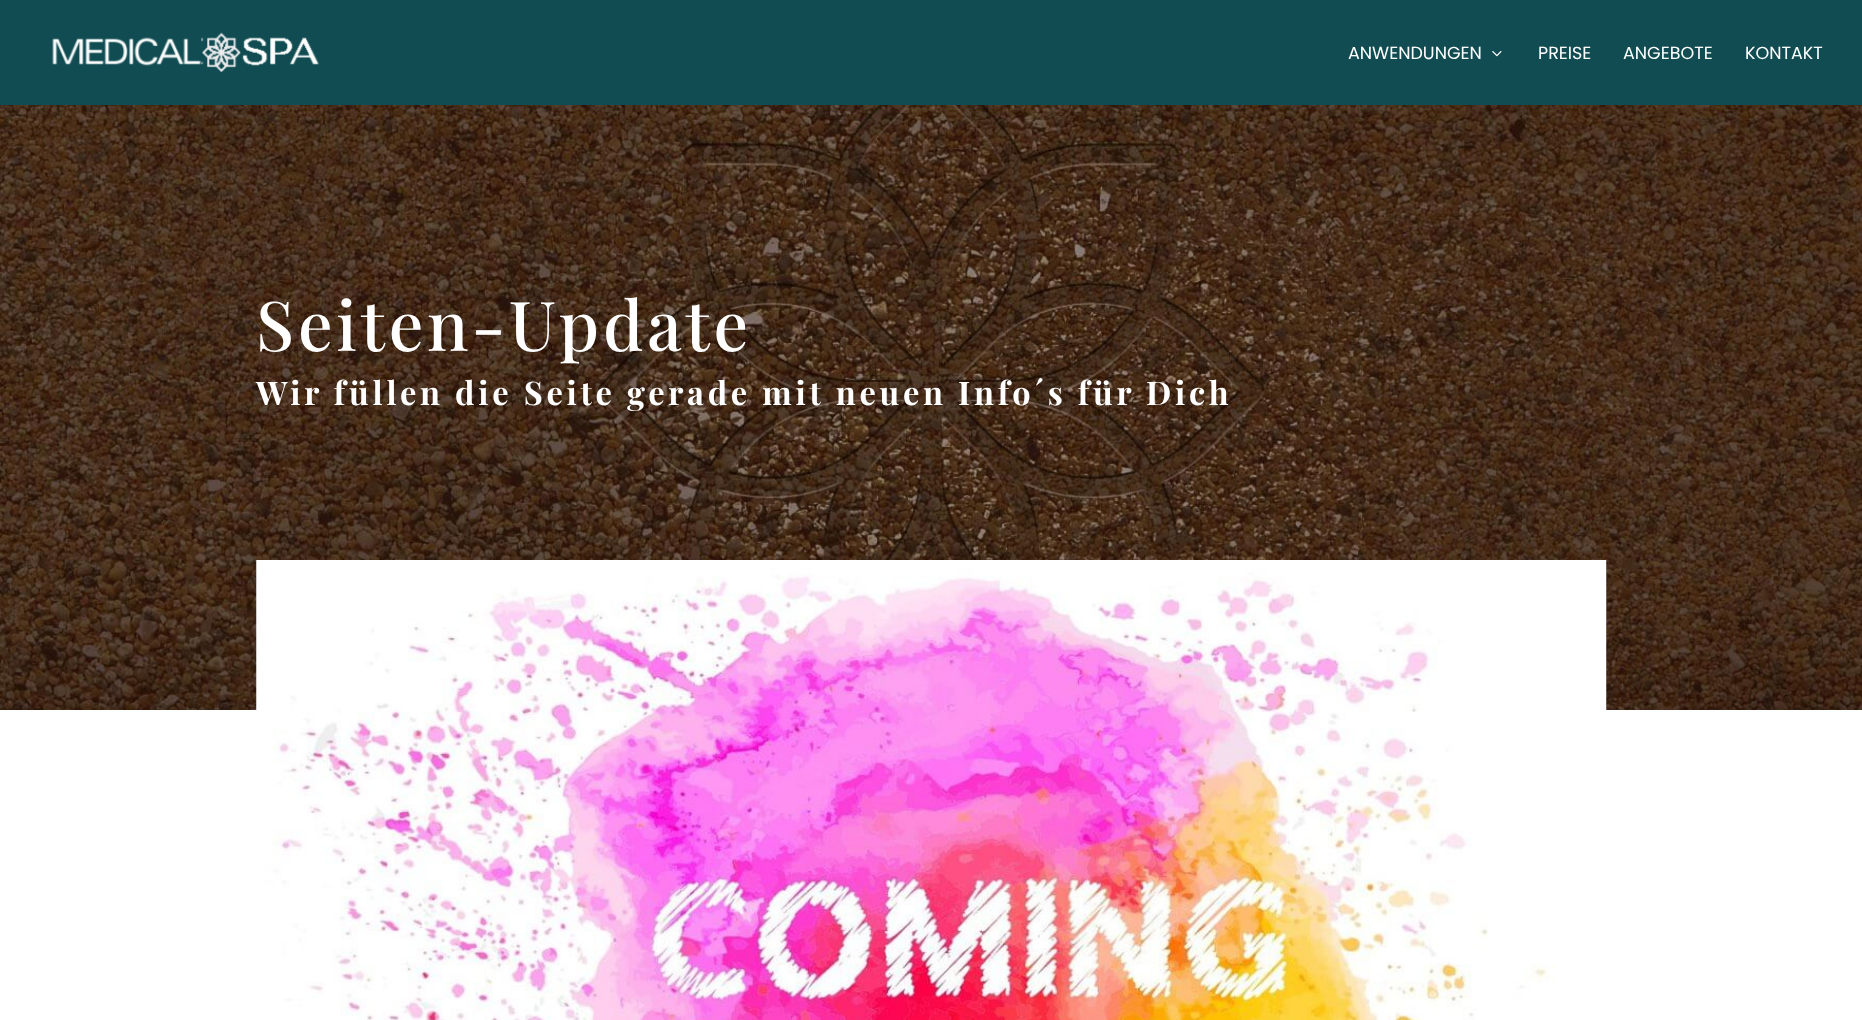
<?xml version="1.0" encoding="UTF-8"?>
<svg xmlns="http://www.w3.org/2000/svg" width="1862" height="1020">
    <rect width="100%" height="100%" fill="#FFFFFF"/>
    <rect x="0" y="0" width="1862" height="105" fill="#104C52"/>
    <image x="52" y="32" width="268" height="40" href="img_01.png"/>
    <text x="1348" y="59" font-family="Poppins" font-size="17.5" fill="#FFFFFF">ANWENDUNGEN</text>
    <image x="1492" y="51" width="10" height="6" href="img_02.png"/>
    <text x="1538" y="59" font-family="Poppins" font-size="17.5" fill="#FFFFFF">PREISE</text>
    <text x="1623" y="59" font-family="Poppins" font-size="17.5" fill="#FFFFFF">ANGEBOTE</text>
    <text x="1745" y="59" font-family="Poppins" font-size="17.5" fill="#FFFFFF">KONTAKT</text>
    <image x="0" y="105" width="1862" height="605" href="img_03.png"/>
    <text x="256" y="351" font-family="Playfair Display" font-size="68.75" font-weight="500" letter-spacing="3.75" fill="#FFFFFF">Seiten-Update</text>
    <text x="256" y="405" font-family="Playfair Display" font-size="32.5" font-weight="700" letter-spacing="3.75" fill="#FFFFFF">Wir füllen die Seite gerade mit neuen Info´s für Dich</text>
    <image x="256" y="560" width="1351" height="460" href="img_04.png"/>
</svg>
